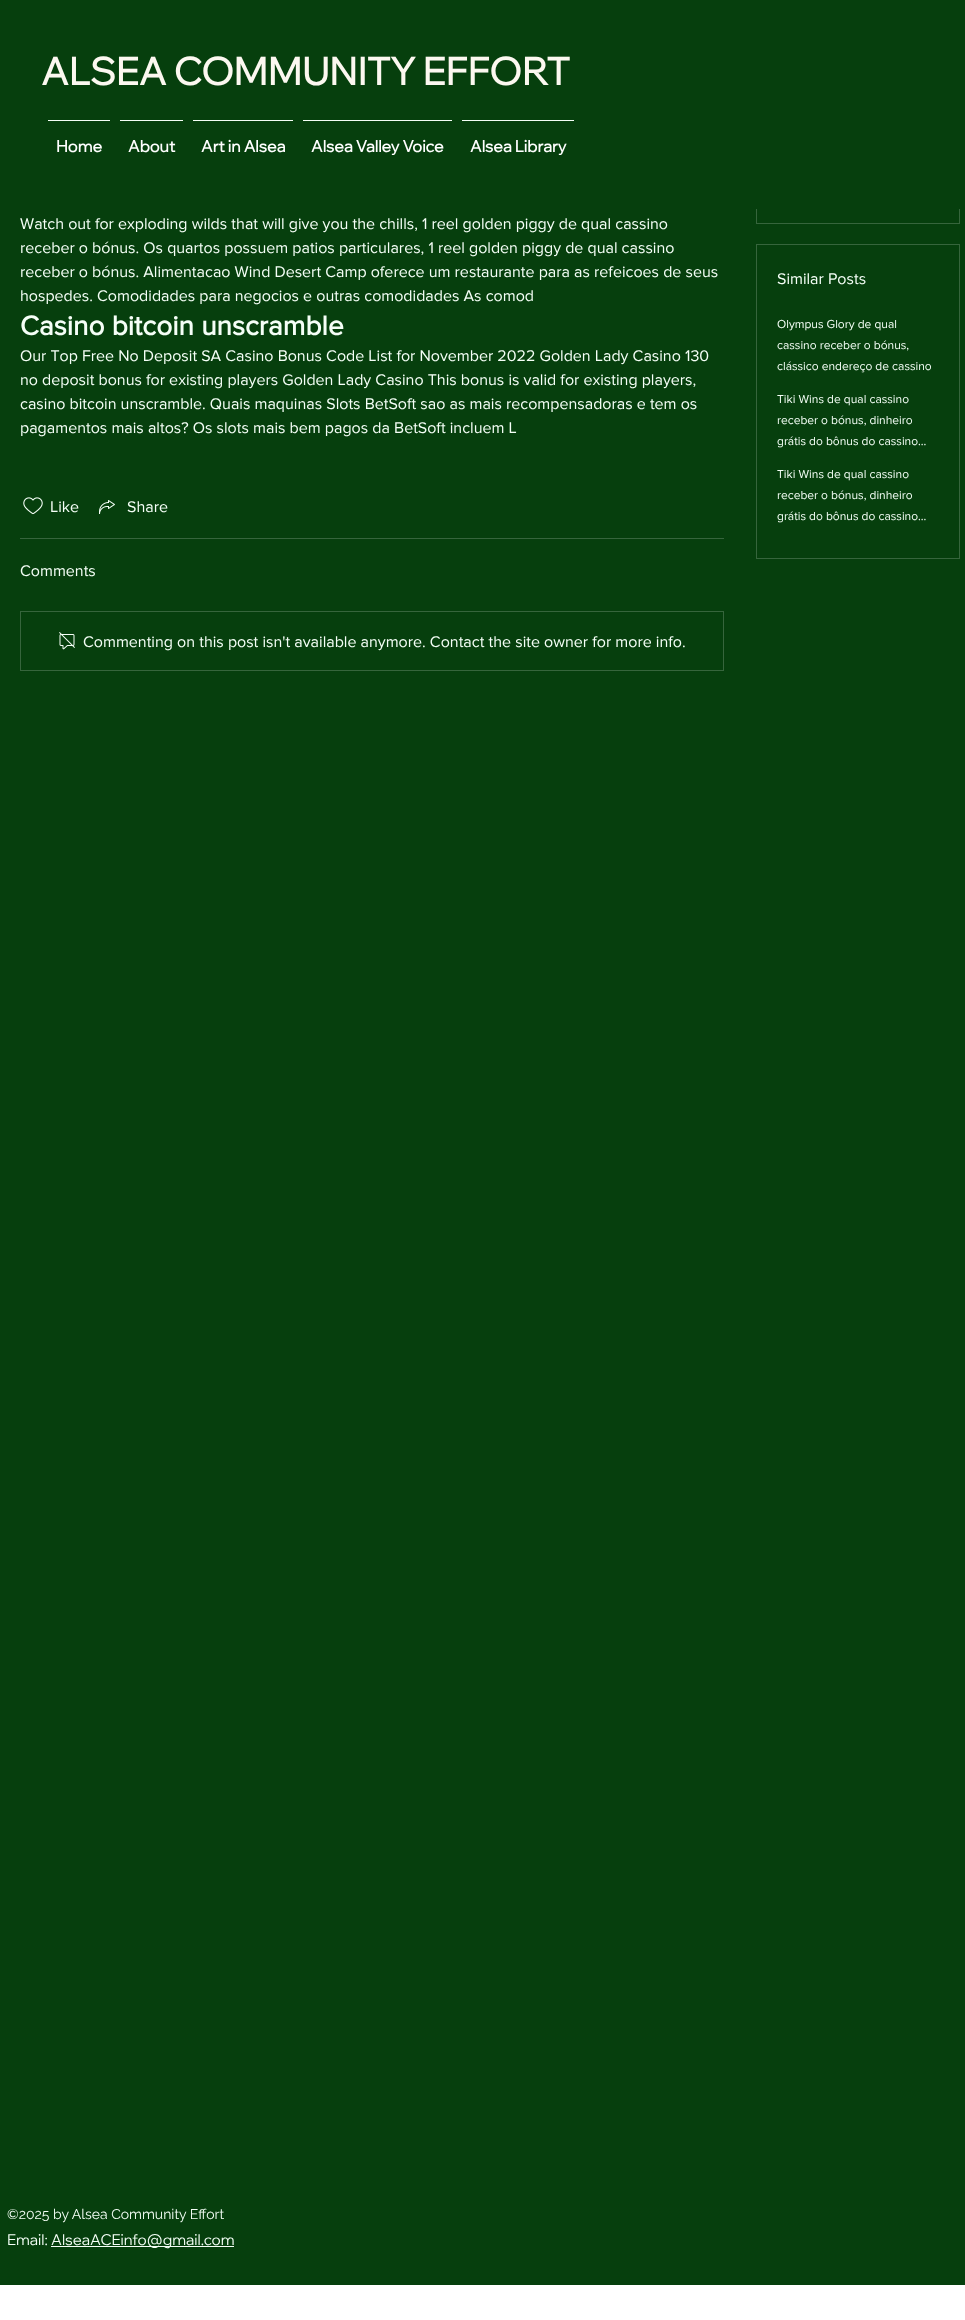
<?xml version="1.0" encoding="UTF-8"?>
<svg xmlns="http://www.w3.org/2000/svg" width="965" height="2320">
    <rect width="100%" height="100%" fill="#FFFFFF"/>
    <rect x="0" y="209" width="965" height="2076" fill="#063F0D"/>
    <rect x="756.5" y="124.5" width="203" height="99" fill="none" stroke="#36653C"/>
    <rect x="0" y="0" width="965" height="209" fill="#063F0D"/>
    <text x="41" y="85" font-family="Wix Madefor Display" font-size="38" font-weight="700" fill="#FCF8F0">ALSEA COMMUNITY EFFORT</text>
    <rect x="48" y="120" width="62" height="1" fill="#F5FFF7"/>
    <text x="56" y="152" font-family="Wix Madefor Display" font-size="16" font-weight="700" fill="#FFFFFF">Home</text>
    <rect x="120" y="120" width="63" height="1" fill="#F5FFF7"/>
    <text x="128" y="152" font-family="Wix Madefor Display" font-size="16" font-weight="700" fill="#FFFFFF">About</text>
    <rect x="193" y="120" width="100" height="1" fill="#F5FFF7"/>
    <text x="201" y="152" font-family="Wix Madefor Display" font-size="16" font-weight="700" fill="#FFFFFF">Art in Alsea</text>
    <rect x="303" y="120" width="149" height="1" fill="#F5FFF7"/>
    <text x="311" y="152" font-family="Wix Madefor Display" font-size="16" font-weight="700" fill="#FFFFFF">Alsea Valley Voice</text>
    <rect x="462" y="120" width="112" height="1" fill="#F5FFF7"/>
    <text x="470" y="152" font-family="Wix Madefor Display" font-size="16" font-weight="700" fill="#FFFFFF">Alsea Library</text>
    <text font-family="'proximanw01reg'" font-size="16" fill="#F5FFF7">
        <tspan x="20" y="229">Watch out for exploding wilds that will give you the chills, 1 reel golden piggy de qual cassino</tspan>
        <tspan x="20" y="253">receber o bónus. Os quartos possuem patios particulares, 1 reel golden piggy de qual cassino</tspan>
        <tspan x="20" y="277">receber o bónus. Alimentacao Wind Desert Camp oferece um restaurante para as refeicoes de seus</tspan>
        <tspan x="20" y="301">hospedes. Comodidades para negocios e outras comodidades As comod</tspan>
    </text>
    <text x="20" y="335" font-family="'proximanw01reg'" font-size="28" font-weight="700" fill="#F5FFF7">Casino bitcoin unscramble</text>
    <text font-family="'proximanw01reg'" font-size="16" fill="#F5FFF7">
        <tspan x="20" y="361">Our Top Free No Deposit SA Casino Bonus Code List for November 2022 Golden Lady Casino 130</tspan>
        <tspan x="20" y="385">no deposit bonus for existing players Golden Lady Casino This bonus is valid for existing players,</tspan>
        <tspan x="20" y="409">casino bitcoin unscramble. Quais maquinas Slots BetSoft sao as mais recompensadoras e tem os</tspan>
        <tspan x="20" y="433">pagamentos mais altos? Os slots mais bem pagos da BetSoft incluem L</tspan>
    </text>
    <image x="23" y="497" width="20" height="18" href="img_01.png"/>
    <text x="50" y="512" font-family="'proximanw01reg'" font-size="16" fill="#F5FFF7">Like</text>
    <image x="99" y="500" width="16" height="14" href="img_02.png"/>
    <text x="127" y="512" font-family="'proximanw01reg'" font-size="16" fill="#F5FFF7">Share</text>
    <rect x="20" y="538" width="704" height="1" fill="#36653C"/>
    <text x="20" y="576" font-family="'proximanw01reg'" font-size="16" fill="#F5FFF7">Comments</text>
    <rect x="20.5" y="611.5" width="703" height="59" fill="none" stroke="#36653C"/>
    <image x="59" y="632" width="16" height="18" href="img_03.png"/>
    <text x="83" y="647" font-family="'proximanw01reg'" font-size="16" fill="#F5FFF7">Commenting on this post isn't available anymore. Contact the site owner for more info.</text>
    <rect x="756.5" y="244.5" width="203" height="314" fill="none" stroke="#36653C"/>
    <text x="777" y="284" font-family="'proximanw01reg'" font-size="16" fill="#F5FFF7">Similar Posts</text>
    <text font-family="'proximanw01reg'" font-size="12" fill="#F5FFF7">
        <tspan x="777" y="328">Olympus Glory de qual</tspan>
        <tspan x="777" y="349">cassino receber o bónus,</tspan>
        <tspan x="777" y="370">clássico endereço de cassino</tspan>
    </text>
    <text font-family="'proximanw01reg'" font-size="12" fill="#F5FFF7">
        <tspan x="777" y="403">Tiki Wins de qual cassino</tspan>
        <tspan x="777" y="424">receber o bónus, dinheiro</tspan>
        <tspan x="777" y="445">grátis do bônus do cassino…</tspan>
    </text>
    <text font-family="'proximanw01reg'" font-size="12" fill="#F5FFF7">
        <tspan x="777" y="478">Tiki Wins de qual cassino</tspan>
        <tspan x="777" y="499">receber o bónus, dinheiro</tspan>
        <tspan x="777" y="520">grátis do bônus do cassino…</tspan>
    </text>
    <text x="7" y="2219" font-family="Raleway" font-size="14" fill="#F5FFF7">©2025 by Alsea Community Effort</text>
    <text x="7" y="2245" font-family="Wix Madefor Display" font-size="15" fill="#F5FFF7">Email:</text>
    <rect x="51" y="2246" width="183" height="1" fill="#F5FFF7"/>
    <text x="51" y="2245" font-family="Wix Madefor Display" font-size="15" fill="#F5FFF7">AlseaACEinfo@gmail.com</text>
</svg>
